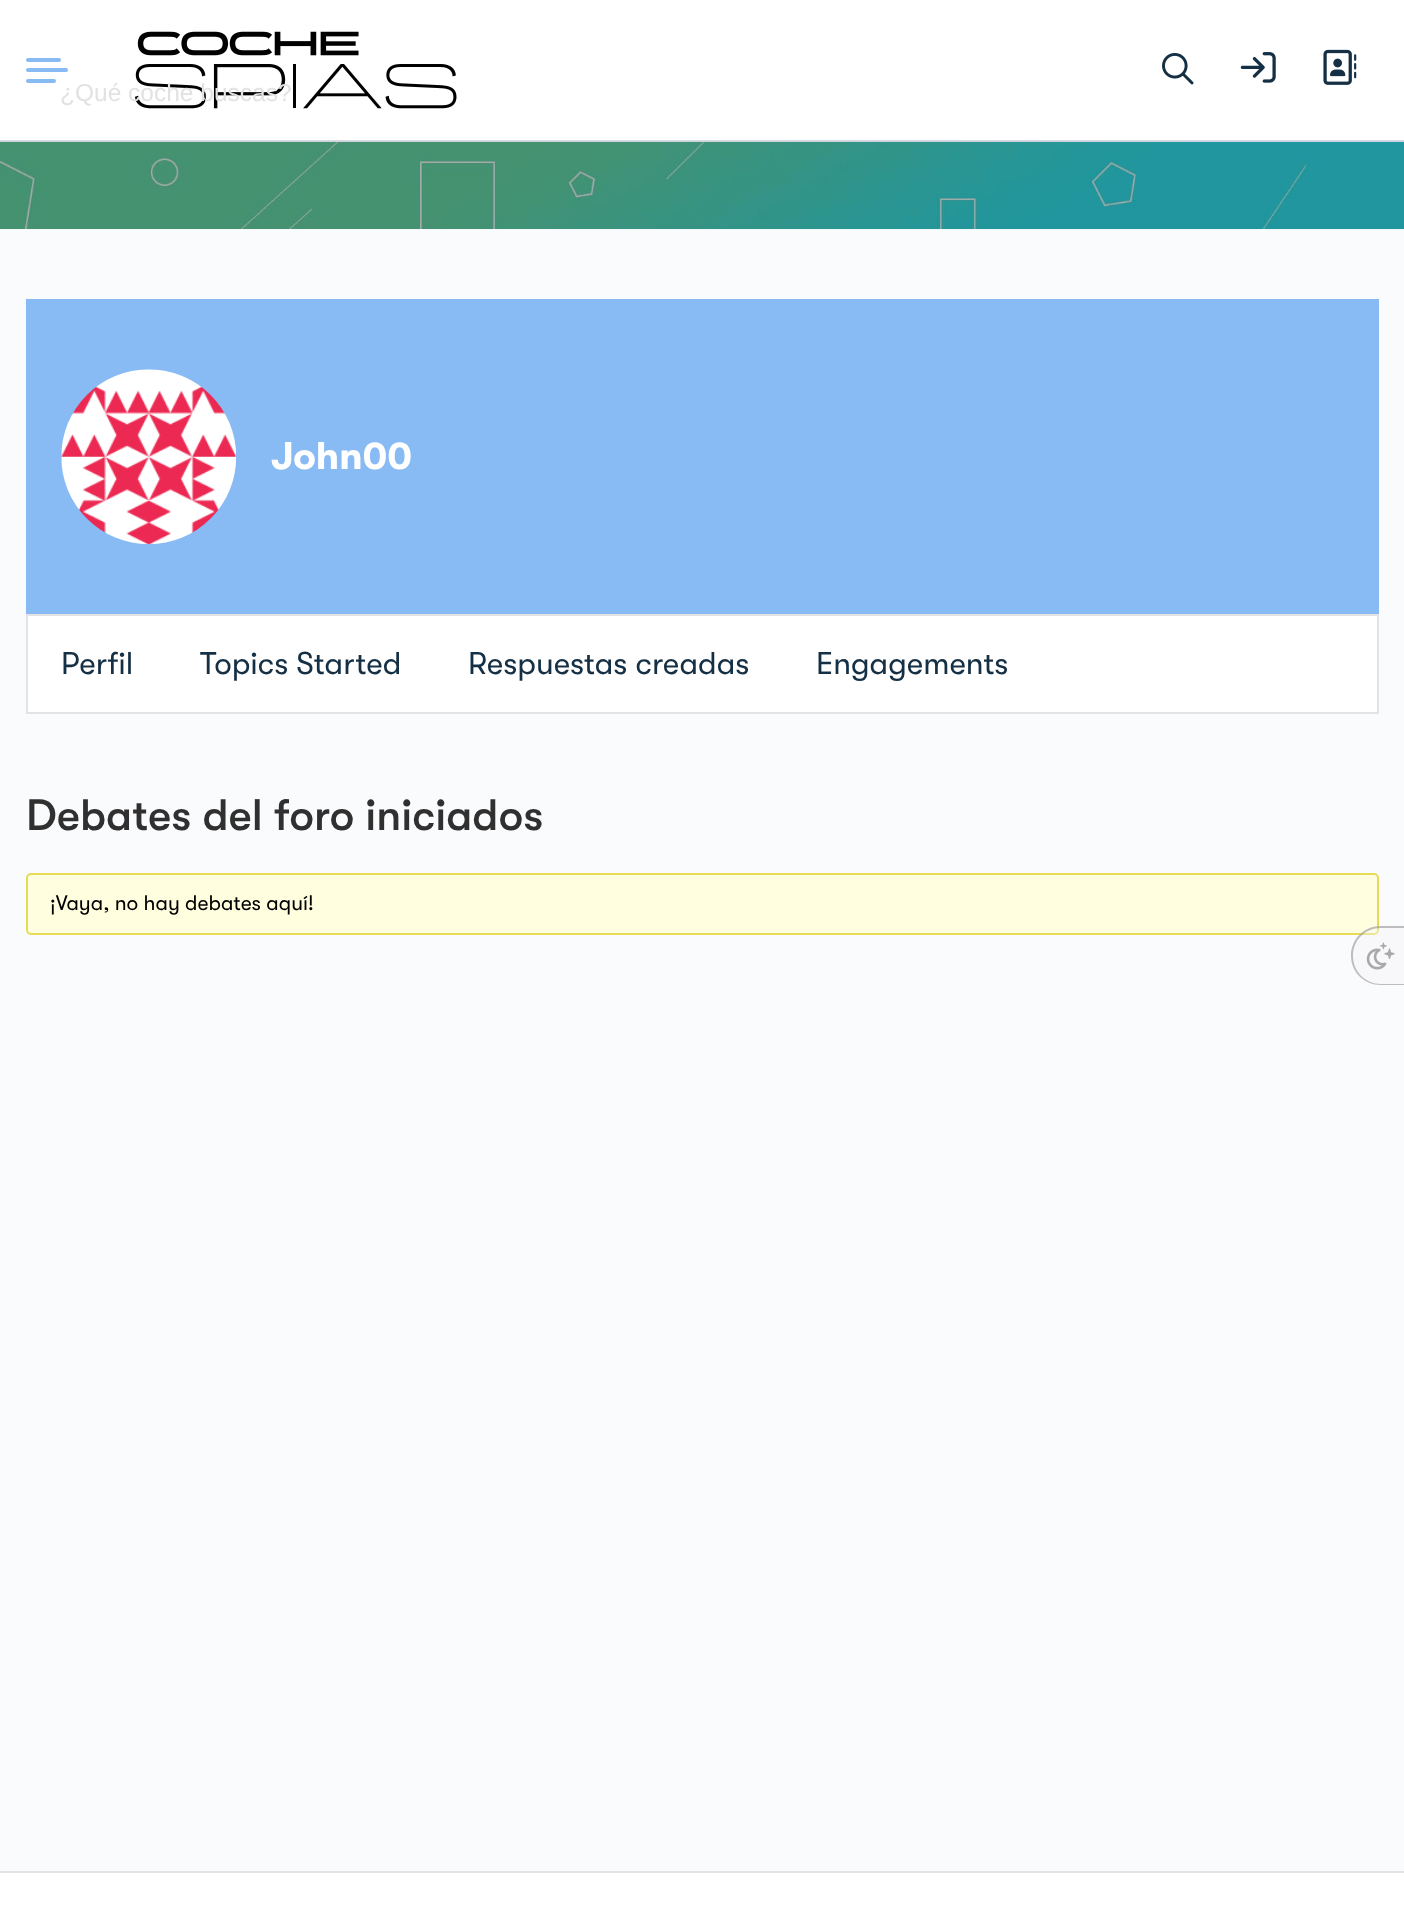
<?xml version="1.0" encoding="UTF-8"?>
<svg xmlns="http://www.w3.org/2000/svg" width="1404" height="1908">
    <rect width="100%" height="100%" fill="#FAFBFD"/>
    <image x="0" y="141" width="1404" height="89" href="img_05.png"/>
    <rect x="0" y="140" width="1404" height="2" fill="#41476C" fill-opacity="0.1"/>
    <rect x="0" y="0" width="1404" height="140" fill="#FFFFFF"/>
    <rect x="0" y="140" width="1404" height="2" fill="#41476C" fill-opacity="0.1"/>
    <rect x="26" y="58" width="35" height="4" rx="2" fill="#88BAF4"/>
    <rect x="26" y="68" width="42" height="4" rx="2" fill="#88BAF4"/>
    <rect x="26" y="79" width="30" height="4" rx="2" fill="#88BAF4"/>
    <image x="135" y="31" width="322" height="78" href="img_01.png"/>
    <image x="1240" y="52" width="36" height="31" href="img_02.png"/>
    <image x="1323" y="49" width="34" height="36" href="img_03.png"/>
    <image x="1162" y="52" width="32" height="33" href="img_04.png"/>
    <text x="60" y="101" font-family="Liberation Sans" font-size="24.5" fill="#E2E2E2">¿Qué coche buscas?</text>
    <rect x="26" y="299" width="1353" height="315" fill="#88BAF4"/>
    <image x="61" y="369" width="176" height="176" href="img_06.png"/>
    <text x="271" y="469" font-family="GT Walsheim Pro" font-size="38.5" font-weight="700" fill="#FFFFFF">John00</text>
    <rect x="27" y="615" width="1351" height="98" fill="#FFFFFF" stroke="#E3E3E3" stroke-width="2"/>
    <text x="61" y="674" font-family="GT Walsheim Pro" font-size="31.5" fill="#153045">Perfil</text>
    <text x="200" y="674" font-family="GT Walsheim Pro" font-size="31.5" fill="#153045">Topics Started</text>
    <text x="468" y="674" font-family="GT Walsheim Pro" font-size="31.5" fill="#153045">Respuestas creadas</text>
    <text x="816" y="674" font-family="GT Walsheim Pro" font-size="31.5" fill="#153045">Engagements</text>
    <text x="26" y="830" font-family="GT Walsheim Pro" font-size="44.1" font-weight="500" fill="#303030">Debates del foro iniciados</text>
    <rect x="27" y="874" width="1351" height="60" rx="4" fill="#FFFFE0" stroke="#E6DB55" stroke-width="2"/>
    <text x="50" y="910" font-family="GT Walsheim Pro" font-size="21" fill="#000000">¡Vaya, no hay debates aquí!</text>
    <path d="M 1380.5 926 H 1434 V 985 H 1380.5 C 1364 985 1351 972 1351 955.5 C 1351 939 1364 926 1380.5 926 Z" fill="#F5F6F7" fill-opacity="0.4"/>
    <path d="M 1381 926 H 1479 V 985 H 1381 C 1364 985 1351 972 1351 956 C 1351 939 1364 926 1381 926 Z M 1381 928 H 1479 V 984 H 1381 C 1365 984 1353 971 1353 956 C 1353 940 1365 928 1381 928 Z" fill="#656565" fill-opacity="0.4" fill-rule="evenodd"/>
    <image x="1366" y="942" width="29" height="28" href="img_07.png"/>
    <rect x="0" y="1873" width="1404" height="35" fill="#FFFFFF"/>
    <rect x="0" y="1871" width="1404" height="2" fill="#E3E3E3"/>
</svg>
